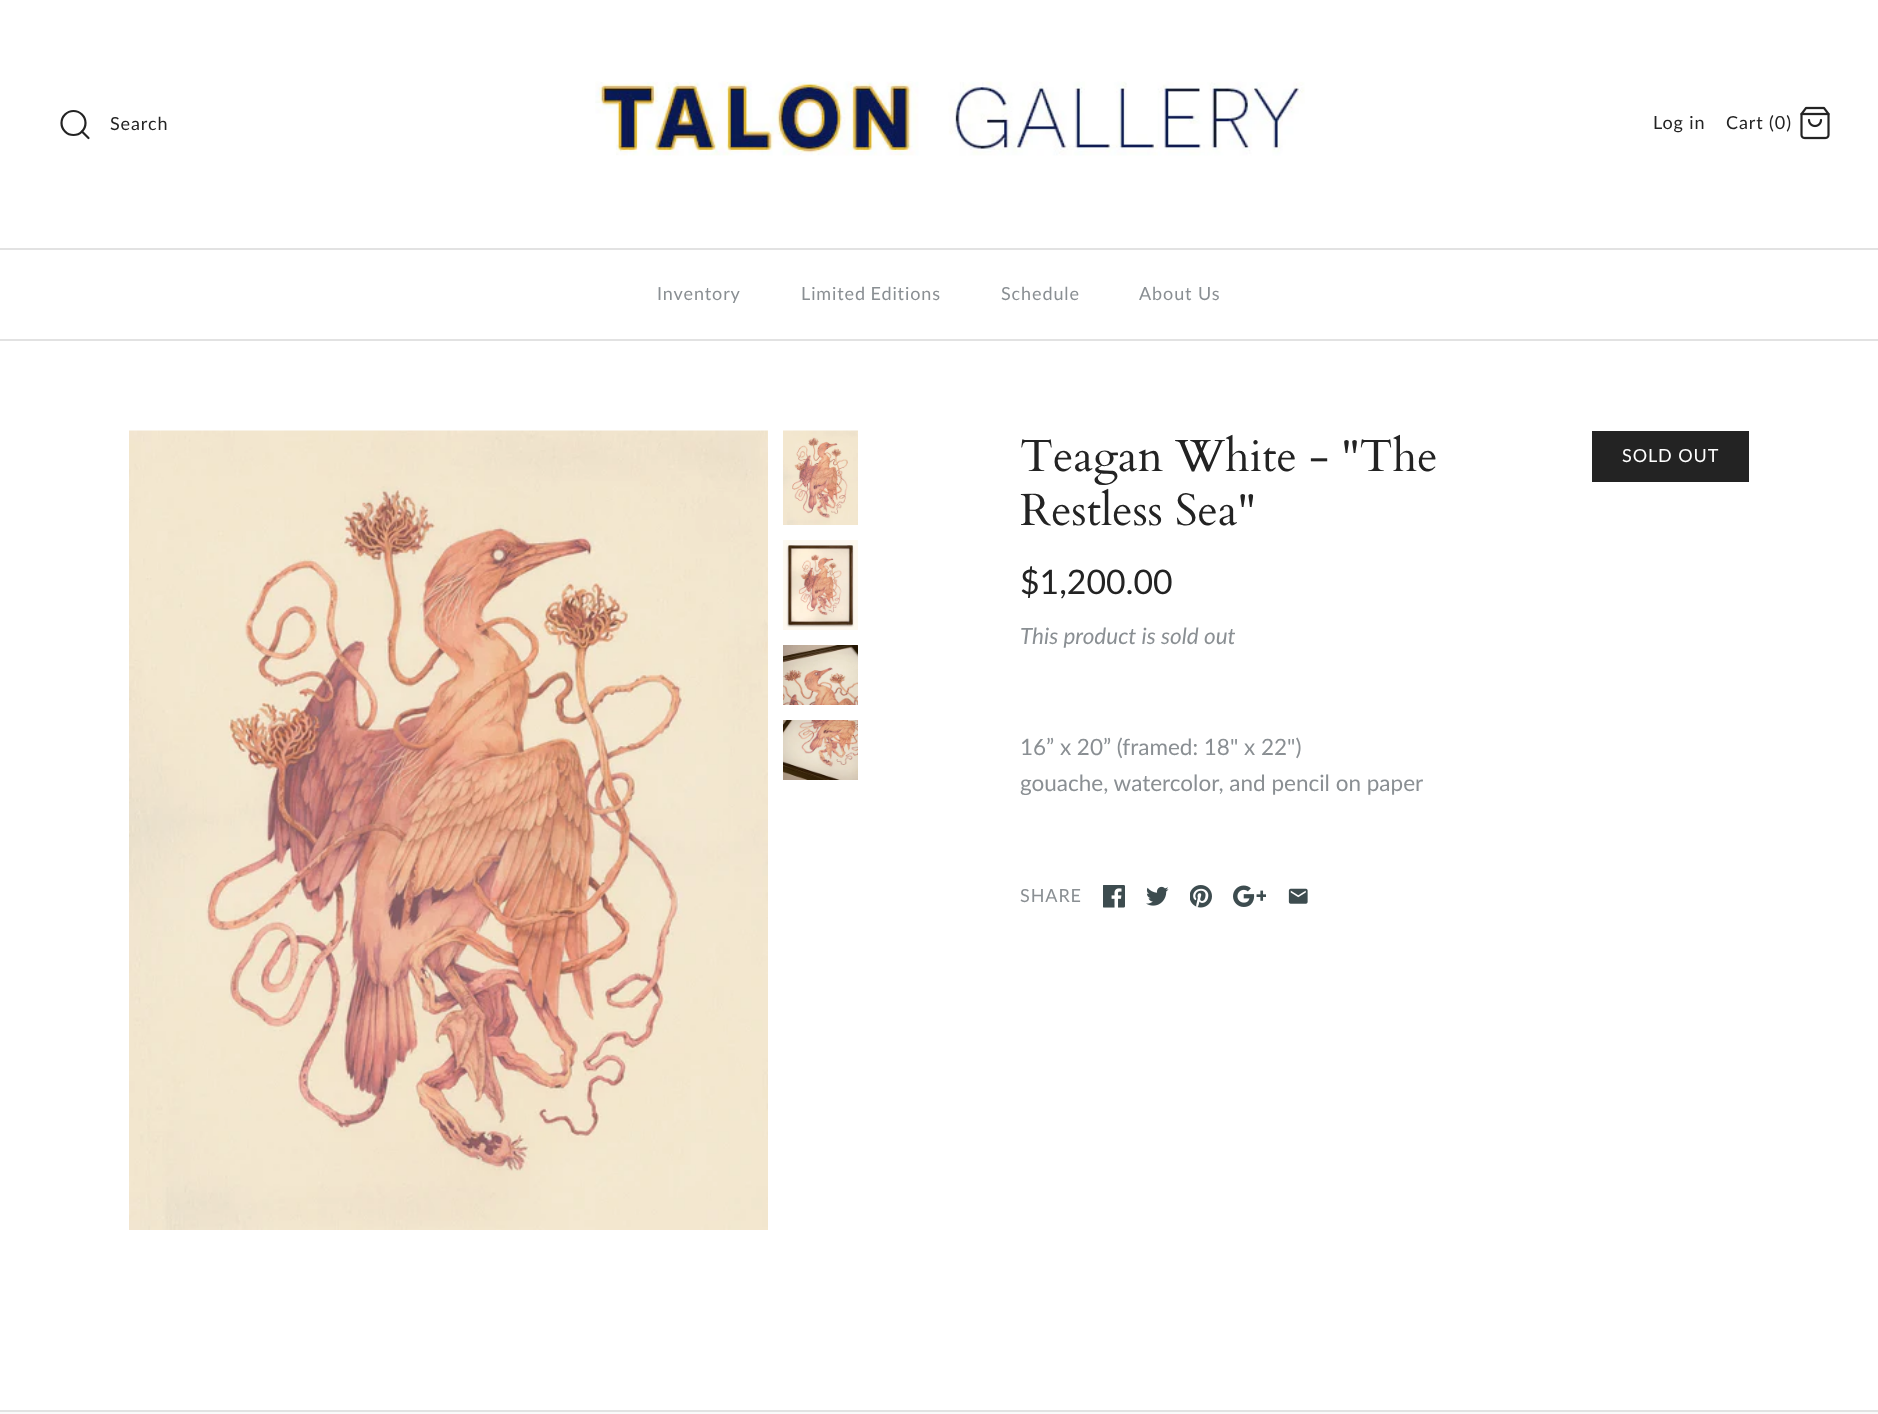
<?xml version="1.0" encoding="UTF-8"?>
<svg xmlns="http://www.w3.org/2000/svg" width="1878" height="1414">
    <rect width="100%" height="100%" fill="#FFFFFF"/>
    <image x="595" y="81" width="710" height="75" href="img_01.png"/>
    <circle cx="73.5" cy="123" r="12" fill="none" stroke="#232323" stroke-width="2.2"/>
    <path d="M 88.5 138 L 82 131.5" fill="none" stroke="#232323" stroke-width="2.2" stroke-linecap="round" stroke-linejoin="round"/>
    <text x="110" y="130" font-family="Lato" font-size="18" letter-spacing="0.9" fill="#232323">Search</text>
    <text x="1653" y="129" font-family="Lato" font-size="18" letter-spacing="0.9" fill="#232323">Log in</text>
    <text x="1726" y="129" font-family="Lato" font-size="18" letter-spacing="0.9" fill="#232323">Cart (0)</text>
    <image x="1800" y="106" width="30" height="34" href="img_02.png"/>
    <rect x="0" y="339" width="1878" height="2" fill="#E2E2E2"/>
    <rect x="0" y="248" width="1878" height="2" fill="#E2E2E2"/>
    <text x="657" y="300" font-family="Lato" font-size="18" letter-spacing="0.9" fill="#8A8F93">Inventory</text>
    <text x="801" y="300" word-spacing="-1" font-family="Lato" font-size="18" letter-spacing="0.9" fill="#8A8F93">Limited Editions</text>
    <text x="1001" y="300" font-family="Lato" font-size="18" letter-spacing="0.9" fill="#8A8F93">Schedule</text>
    <text x="1139" y="300" font-family="Lato" font-size="18" letter-spacing="0.9" fill="#8A8F93">About Us</text>
    <image x="129" y="430" width="639" height="800" href="img_03.png"/>
    <image x="783" y="430" width="75" height="95" href="img_04.png"/>
    <image x="783" y="540" width="75" height="90" href="img_05.png"/>
    <image x="783" y="645" width="75" height="60" href="img_06.png"/>
    <image x="783" y="720" width="75" height="60" href="img_07.png"/>
    <text font-family="Cardo" font-size="45" fill="#232323">
        <tspan x="1020" y="471">Teagan White - "The</tspan>
        <tspan x="1020" y="525">Restless Sea"</tspan>
    </text>
    <rect x="1592" y="431" width="157" height="51" fill="#232323"/>
    <text x="1622" y="462" font-family="Lato" font-size="18" letter-spacing="0.9" fill="#FFFFFF">SOLD OUT</text>
    <text x="1020" y="594" font-family="Lato" font-size="33.75" fill="#232323">$1,200.00</text>
    <text x="1020" y="644" font-family="Lato" font-size="22.5" font-style="italic" fill="#8A8F93">This product is sold out</text>
    <text font-family="Lato" font-size="22.5" fill="#8A8F93">
        <tspan x="1020" y="755">16” x 20” (framed: 18" x 22")</tspan>
        <tspan x="1020" y="791">gouache, watercolor, and pencil on paper</tspan>
    </text>
    <text x="1020" y="902" font-family="Lato" font-size="18" letter-spacing="0.9" fill="#8A8F93">SHARE</text>
    <image x="1103" y="885" width="22" height="23" href="img_08.png"/>
    <image x="1146" y="886" width="23" height="20" href="img_09.png"/>
    <image x="1190" y="885" width="22" height="23" href="img_10.png"/>
    <image x="1233" y="885" width="33" height="22" href="img_11.png"/>
    <image x="1288" y="888" width="20" height="16" href="img_12.png"/>
    <rect x="0" y="1412" width="1878" height="2" fill="#FAFAFA"/>
    <rect x="0" y="1410" width="1878" height="2" fill="#E2E2E2"/>
</svg>
